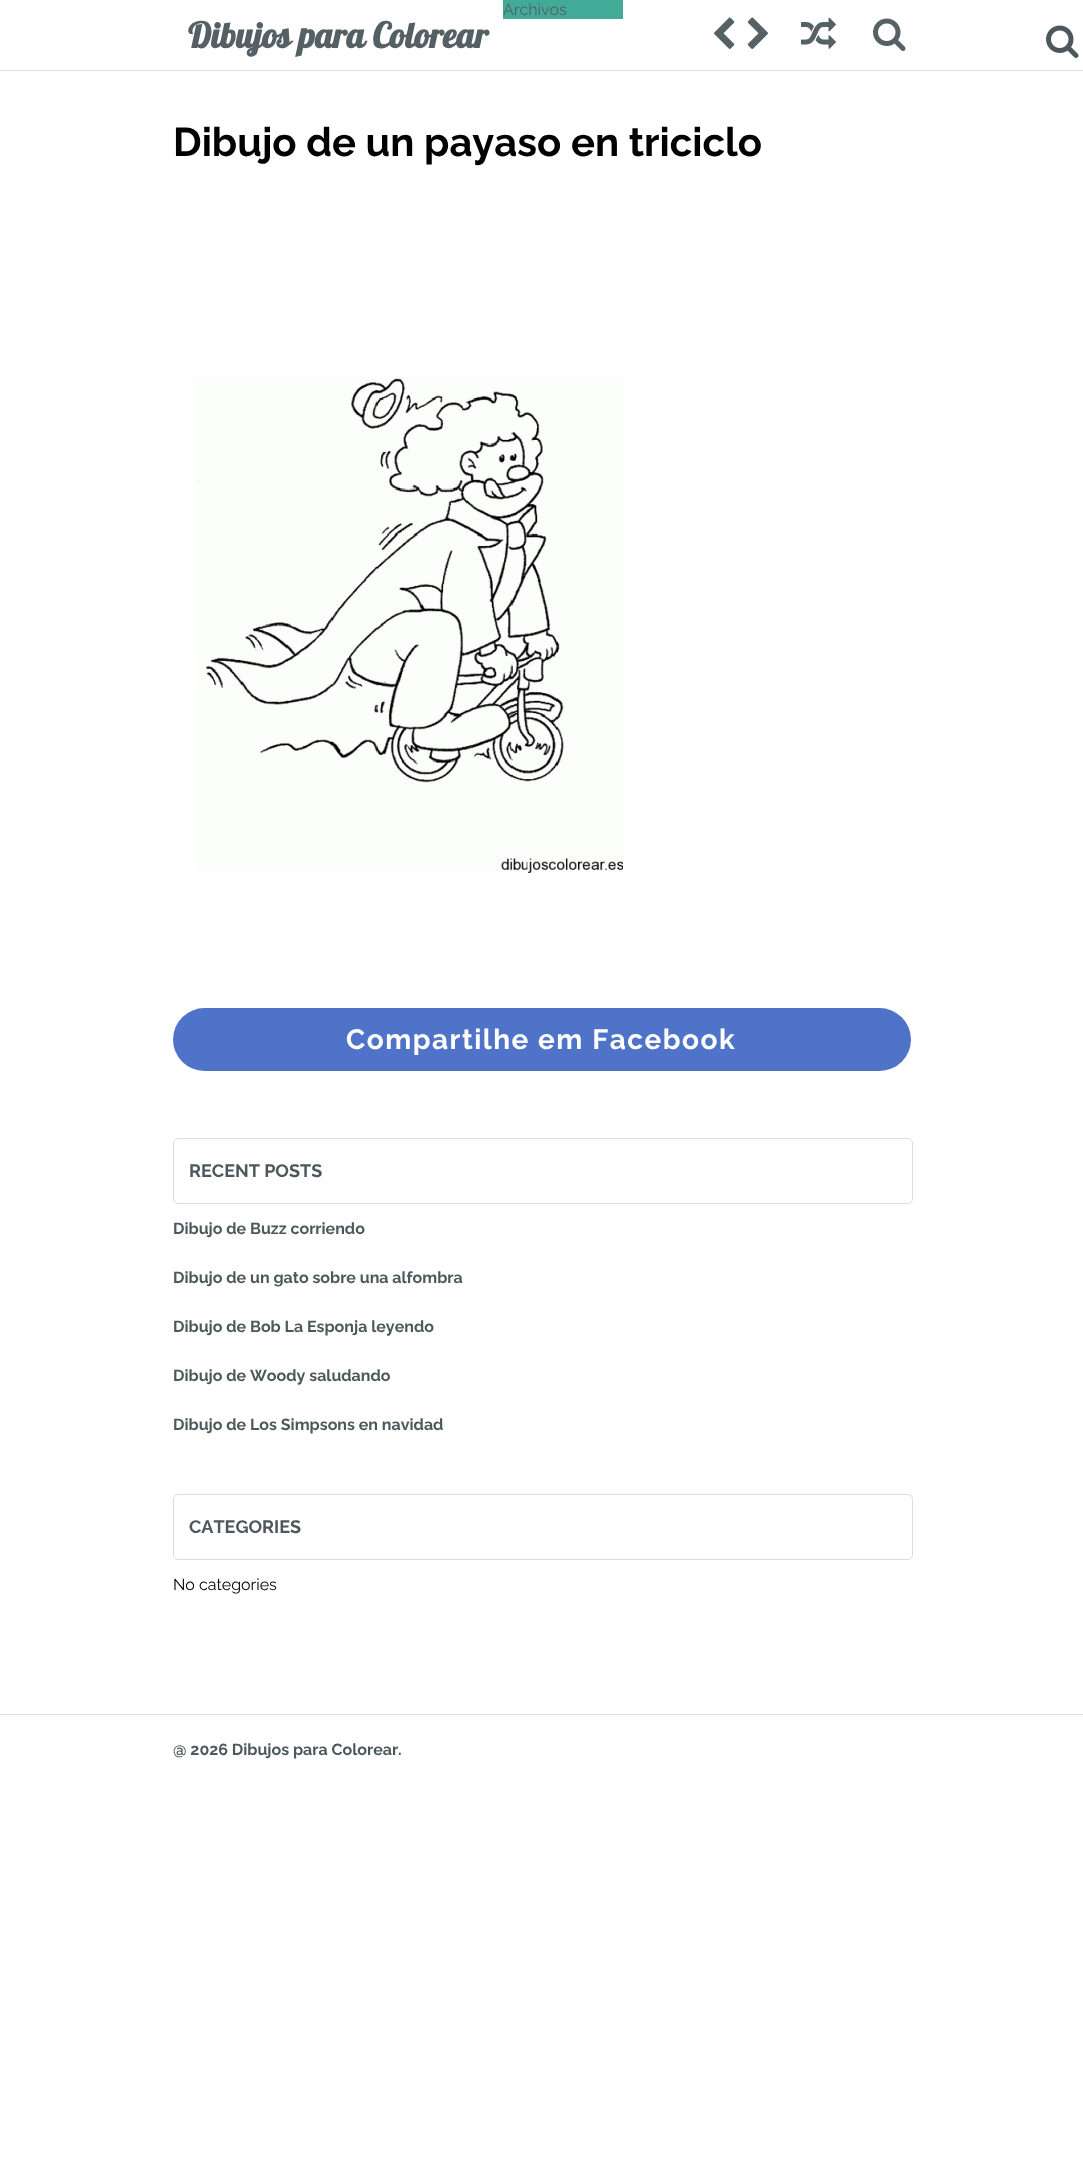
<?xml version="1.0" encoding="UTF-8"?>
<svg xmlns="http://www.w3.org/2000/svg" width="1083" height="2162">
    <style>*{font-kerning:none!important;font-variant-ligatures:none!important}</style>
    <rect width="100%" height="100%" fill="#FFFFFF"/>
    <rect x="0" y="70" width="1083" height="1" fill="#DFDFDF"/>
    <rect x="503" y="0" width="120" height="19" fill="#41AB98"/>
    <text x="503" y="15" font-family="Raleway" font-size="16" fill="#556064">Archivos</text>
    <text x="188" y="48" font-family="Lobster" font-size="35" font-weight="700" fill="#556064">Dibujos para Colorear</text>
    <image x="714" y="17" width="21" height="32" href="img_01.png"/>
    <image x="747" y="17" width="21" height="32" href="img_02.png"/>
    <image x="801" y="17" width="35" height="32" href="img_03.png"/>
    <image x="873" y="18" width="33" height="33" href="img_04.png"/>
    <text x="173" y="156" font-family="Raleway" font-size="40" font-weight="700" fill="#000000">Dibujo de un payaso en triciclo</text>
    <image x="196" y="378" width="427" height="495" href="img_05.png"/>
    <rect x="173" y="1008" width="738" height="63" rx="31.5" fill="#4E73C9"/>
    <text x="346" y="1049" font-family="Raleway" font-size="28" font-weight="700" letter-spacing="1.5" fill="#FFFFFF">Compartilhe em Facebook</text>
    <image x="1046" y="25" width="33" height="33" href="img_06.png"/>
    <rect x="173.5" y="1138.5" width="739" height="65" rx="4.5" fill="none" stroke="#DDDDDD"/>
    <text x="189" y="1177" font-family="Raleway" font-size="18" font-weight="700" fill="#4C585C">RECENT POSTS</text>
    <text x="173" y="1234" font-family="Raleway" font-size="16" font-weight="700" fill="#4C585C">Dibujo de Buzz corriendo</text>
    <text x="173" y="1283" font-family="Raleway" font-size="16" font-weight="700" fill="#4C585C">Dibujo de un gato sobre una alfombra</text>
    <text x="173" y="1332" font-family="Raleway" font-size="16" font-weight="700" fill="#4C585C">Dibujo de Bob La Esponja leyendo</text>
    <text x="173" y="1381" font-family="Raleway" font-size="16" font-weight="700" fill="#4C585C">Dibujo de Woody saludando</text>
    <text x="173" y="1430" font-family="Raleway" font-size="16" font-weight="700" fill="#4C585C">Dibujo de Los Simpsons en navidad</text>
    <rect x="173.5" y="1494.5" width="739" height="65" rx="4.5" fill="none" stroke="#DDDDDD"/>
    <text x="189" y="1533" font-family="Raleway" font-size="18" font-weight="700" fill="#4C585C">CATEGORIES</text>
    <text x="173" y="1590" font-family="Raleway" font-size="16" fill="#000000">No categories</text>
    <rect x="0" y="1714" width="1083" height="1" fill="#DDDDDD"/>
    <text x="173" y="1755" font-family="Raleway" font-size="16" font-weight="700" fill="#4C585C">@ 2026 Dibujos para Colorear.</text>
</svg>
